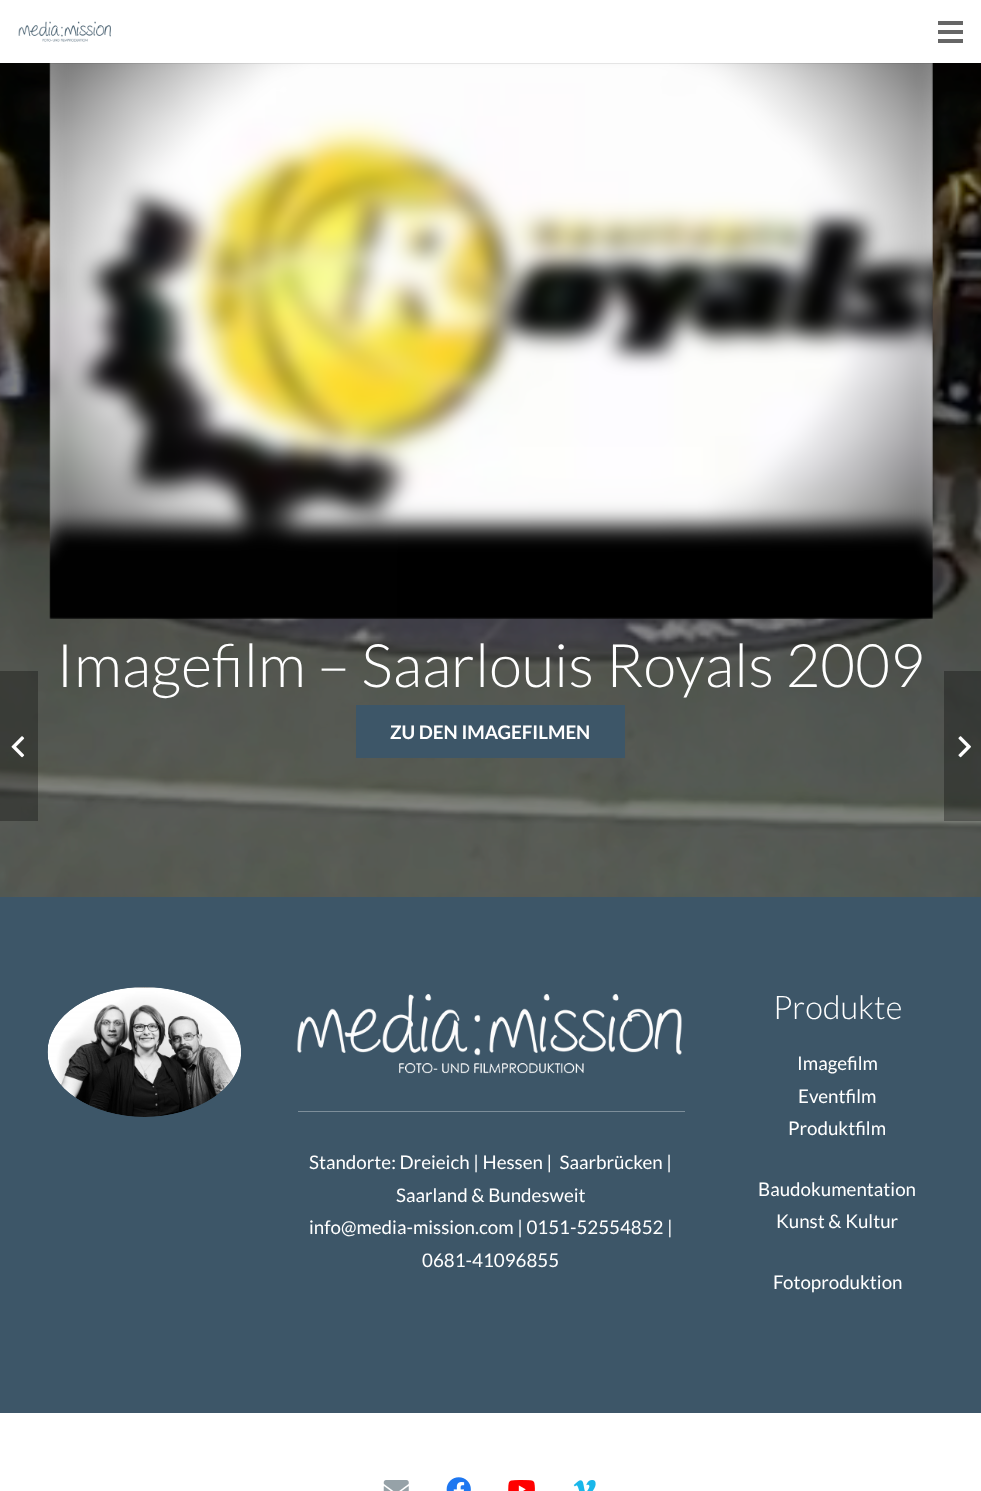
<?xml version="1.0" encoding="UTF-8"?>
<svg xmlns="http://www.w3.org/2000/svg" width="981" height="1491">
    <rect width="100%" height="100%" fill="#FFFFFF"/>
    <image x="0" y="63" width="981" height="834" href="img_02.png"/>
    <image x="49" y="63" width="884" height="556" href="img_03.png"/>
    <rect x="49" y="63" width="884" height="1" fill="#000000" fill-opacity="0.08"/>
    <image x="18" y="21" width="93" height="21" href="img_01.png"/>
    <rect x="938" y="30" width="25" height="4" fill="#666666"/>
    <rect x="938" y="21" width="25" height="4" fill="#666666"/>
    <rect x="938" y="39" width="25" height="4" fill="#666666"/>
    <rect x="0" y="897" width="981" height="516" fill="#3D5668"/>
    <text x="56" y="687" font-family="Lato" font-size="60" font-weight="300" fill="#FFFFFF">Imagefilm – Saarlouis Royals 2009</text>
    <rect x="356" y="705" width="269" height="53" fill="#3D5668"/>
    <text x="390" y="739" font-family="Lato" font-size="18.75" font-weight="700" fill="#FFFFFF">ZU DEN IMAGEFILMEN</text>
    <rect x="0" y="671" width="38" height="150" fill="#000000" fill-opacity="0.3"/>
    <image x="11" y="736" width="14" height="22" href="img_04.png"/>
    <rect x="944" y="671" width="37" height="150" fill="#000000" fill-opacity="0.3"/>
    <image x="958" y="736" width="13" height="22" href="img_05.png"/>
    <image x="47" y="987" width="194" height="130" href="img_06.png"/>
    <path d="M 144.5 987.5 L 156.5 988 H 132.5 Z" fill="#1E1E1E" fill-opacity="0.8"/>
    <image x="297" y="994" width="385" height="80" href="img_07.png"/>
    <rect x="298" y="1111" width="387" height="1" fill="#7D8E9A"/>
    <text x="309" y="1169" font-family="Lato" font-size="18.75" fill="#FFFFFF" xml:space="preserve">Standorte: Dreieich | Hessen |  Saarbrücken |</text>
    <text x="396" y="1202" font-family="Lato" font-size="18.75" fill="#FFFFFF">Saarland &amp; Bundesweit</text>
    <text x="309" y="1234" font-family="Lato" font-size="18.75" fill="#FFFFFF">info@media-mission.com | 0151-52554852 |</text>
    <text x="422" y="1267" font-family="Lato" font-size="18.75" fill="#FFFFFF">0681-41096855</text>
    <text x="773" y="1019" font-family="Lato" font-size="32.5" font-weight="300" fill="#FFFFFF">Produkte</text>
    <text x="797" y="1070" font-family="Lato" font-size="18.75" fill="#FFFFFF">Imagefilm</text>
    <text x="798" y="1103" font-family="Lato" font-size="18.75" fill="#FFFFFF">Eventfilm</text>
    <text x="788" y="1135" font-family="Lato" font-size="18.75" fill="#FFFFFF">Produktfilm</text>
    <text x="758" y="1196" font-family="Lato" font-size="18.75" fill="#FFFFFF">Baudokumentation</text>
    <text x="776" y="1228" font-family="Lato" font-size="18.75" fill="#FFFFFF">Kunst &amp; Kultur</text>
    <text x="773" y="1289" font-family="Lato" font-size="18.75" fill="#FFFFFF">Fotoproduktion</text>
    <image x="383" y="1480" width="26" height="11" href="img_08.png"/>
    <image x="446" y="1477" width="25" height="14" href="img_09.png"/>
    <image x="508" y="1480" width="27" height="11" href="img_10.png"/>
    <image x="573" y="1480" width="23" height="11" href="img_11.png"/>
</svg>
